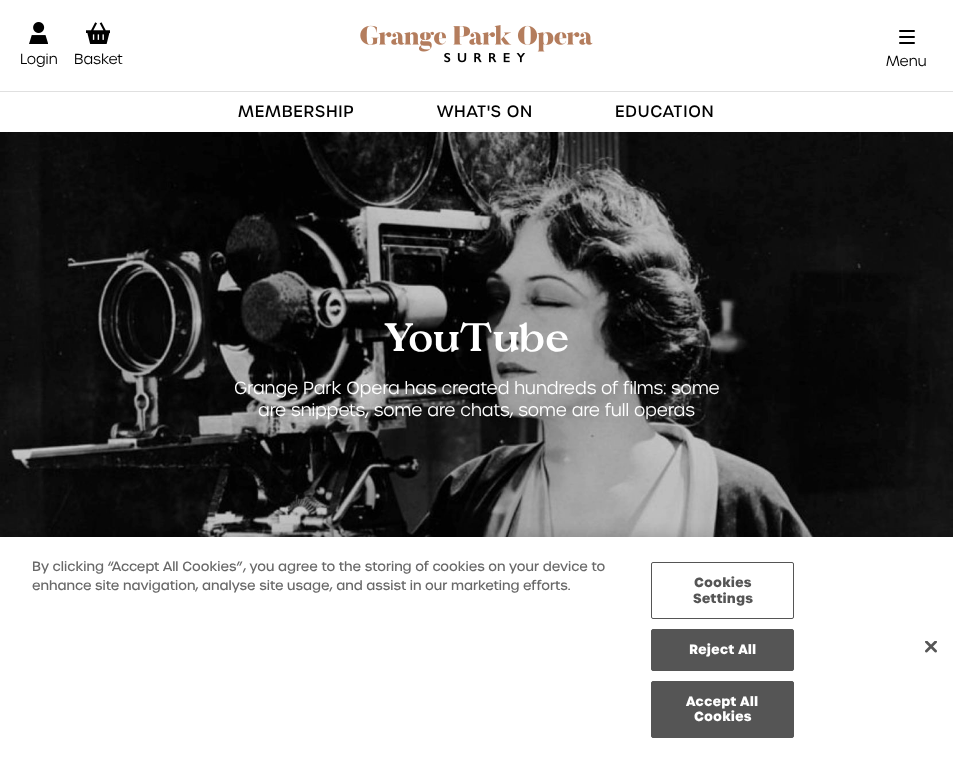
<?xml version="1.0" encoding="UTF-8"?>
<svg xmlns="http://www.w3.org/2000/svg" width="953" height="758">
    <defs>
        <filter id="blur1" x="-50%" y="-200%" width="200%" height="500%"><feGaussianBlur stdDeviation="9"/></filter>
    </defs>
    <rect width="100%" height="100%" fill="#FFFFFF"/>
    <rect x="0" y="91" width="953" height="1" fill="#E0E0E0"/>
    <image x="29" y="22" width="19" height="22" href="img_01.png"/>
    <text x="20" y="64" font-family="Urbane" font-size="14" font-weight="300" fill="#000000">Login</text>
    <image x="86" y="22" width="24" height="22" href="img_02.png"/>
    <text x="74" y="64" font-family="Urbane" font-size="14" font-weight="300" fill="#000000">Basket</text>
    <image x="360" y="25" width="233" height="38" href="img_03.png"/>
    <rect x="899" y="30" width="16" height="2" rx="1" fill="#000000"/>
    <rect x="899" y="36" width="16" height="2" rx="1" fill="#000000"/>
    <rect x="899" y="42" width="16" height="2" rx="1" fill="#000000"/>
    <text x="886" y="66" font-family="Urbane" font-size="14" font-weight="300" fill="#000000">Menu</text>
    <text x="238" y="117" font-family="Urbane" font-size="16" font-weight="500" letter-spacing="0.75" fill="#000000">MEMBERSHIP</text>
    <text x="437" y="117" font-family="Urbane" font-size="16" font-weight="500" letter-spacing="0.75" fill="#000000">WHAT'S ON</text>
    <text x="615" y="117" font-family="Urbane" font-size="16" font-weight="500" letter-spacing="0.75" fill="#000000">EDUCATION</text>
    <image x="0" y="132" width="953" height="405" href="img_04.png"/>
    <text x="384" y="351" font-family="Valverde" font-size="38" font-weight="500" letter-spacing="0.75" fill="#FFFFFF">YouTube</text>
    <text x="234" y="394" font-family="Urbane" font-size="17" font-weight="300" fill="#FFFFFF">Grange Park Opera has created hundreds of films: some</text>
    <text x="258" y="416" font-family="Urbane" font-size="17" font-weight="300" fill="#FFFFFF">are snippets, some are chats, some are full operas</text>
    <rect x="0" y="537" width="953" height="221" fill="#000000" fill-opacity="0.2" filter="url(#blur1)"/>
    <rect x="0" y="537" width="953" height="221" fill="#FFFFFF"/>
    <text font-family="Urbane" font-size="13" font-weight="500" fill="#696969">
        <tspan x="32" y="571">By clicking “Accept All Cookies”, you agree to the storing of cookies on your device to</tspan>
        <tspan x="32" y="590">enhance site navigation, analyse site usage, and assist in our marketing efforts.</tspan>
    </text>
    <rect x="651.5" y="562.5" width="142" height="56" rx="1.5" fill="none" stroke="#555555"/>
    <text x="694" y="587" font-family="Urbane" font-size="13" font-weight="700" letter-spacing="0.1" fill="#555555">Cookies</text>
    <text x="693" y="603" font-family="Urbane" font-size="13" font-weight="700" letter-spacing="0.1" fill="#555555">Settings</text>
    <rect x="651.5" y="629.5" width="142" height="41" rx="1.5" fill="#555555" stroke="#555555"/>
    <text x="689" y="654" font-family="Urbane" font-size="13" font-weight="700" letter-spacing="0.1" fill="#FFFFFF">Reject All</text>
    <rect x="651.5" y="681.5" width="142" height="56" rx="1.5" fill="#555555" stroke="#555555"/>
    <text x="686" y="706" font-family="Urbane" font-size="13" font-weight="700" letter-spacing="0.1" fill="#FFFFFF">Accept All</text>
    <text x="694" y="721" font-family="Urbane" font-size="13" font-weight="700" letter-spacing="0.1" fill="#FFFFFF">Cookies</text>
    <image x="925" y="641" width="12" height="12" href="img_05.png"/>
</svg>
